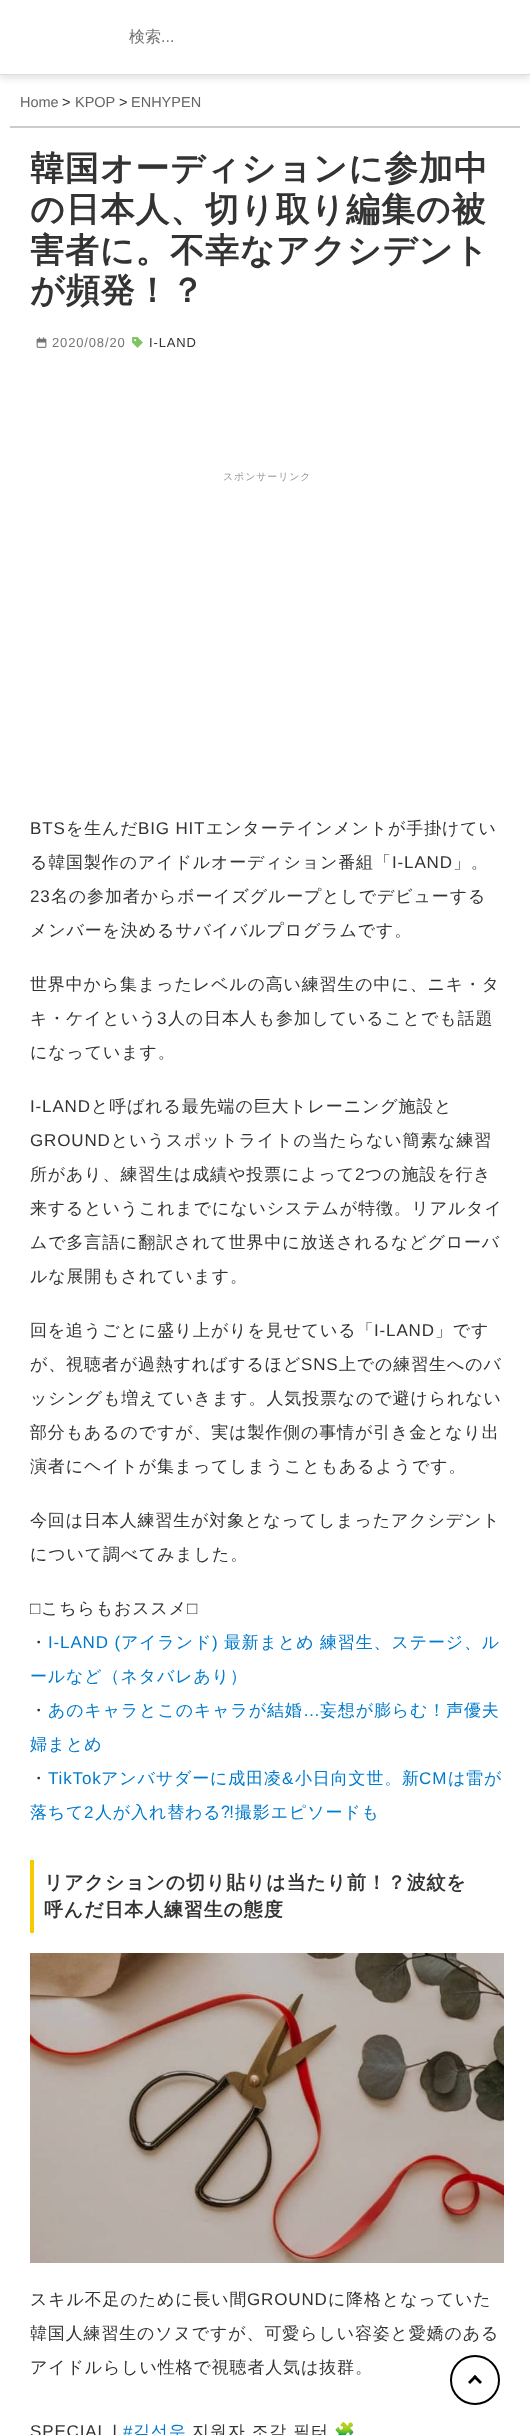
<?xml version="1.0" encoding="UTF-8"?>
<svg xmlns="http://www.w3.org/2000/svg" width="530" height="2435">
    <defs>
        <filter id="blur1" x="-50%" y="-200%" width="200%" height="500%"><feGaussianBlur stdDeviation="3"/></filter>
    </defs>
    <rect width="100%" height="100%" fill="#FFFFFF"/>
    <rect x="0" y="4" width="530" height="75" fill="#000000" fill-opacity="0.1" filter="url(#blur1)"/>
    <rect x="0" y="0" width="530" height="74" fill="#FFFFFF"/>
    <rect x="0" y="74" width="530" height="1" fill="#DDDDDD"/>
    <text x="129" y="42" font-family="WenQuanYi Zen Hei" font-size="16" font-weight="500" fill="#767474">検索</text>
    <text x="161" y="42" font-family="Liberation Sans" font-size="16" fill="#767474">...</text>
    <rect x="10" y="126" width="510" height="2" fill="#CCCCCC"/>
    <text x="20" y="107" font-family="Liberation Sans" font-size="14.5" fill="#666666">Home</text>
    <text x="62" y="107" font-family="Liberation Sans" font-size="14.5" fill="#333333">&gt;</text>
    <text x="75" y="107" font-family="Liberation Sans" font-size="14.5" fill="#666666">KPOP</text>
    <text x="119" y="107" font-family="Liberation Sans" font-size="14.5" fill="#333333">&gt;</text>
    <text x="131" y="107" font-family="Liberation Sans" font-size="14.5" fill="#666666">ENHYPEN</text>
    <text font-family="WenQuanYi Zen Hei" font-size="34" font-weight="700" letter-spacing="0.85" fill="#333333">
        <tspan x="30" y="180">韓国オーディションに参加中</tspan>
        <tspan x="30" y="221">の日本人、切り取り編集の被</tspan>
        <tspan x="30" y="262">害者に。不幸なアクシデント</tspan>
        <tspan x="30" y="302">が頻発！？</tspan>
    </text>
    <image x="36" y="337" width="11" height="11" href="img_01.png"/>
    <text x="52" y="347" font-family="Liberation Sans" font-size="13" letter-spacing="0.85" fill="#767474">2020/08/20</text>
    <image x="132" y="337" width="11" height="11" href="img_02.png"/>
    <text x="149" y="347" font-family="Liberation Sans" font-size="13" letter-spacing="0.85" fill="#333333">I-LAND</text>
    <text x="223" y="480" font-family="WenQuanYi Zen Hei" font-size="10" font-weight="500" letter-spacing="0.85" fill="#999999">スポンサーリンク</text>
    <text x="30" y="834" font-family="Liberation Sans" font-size="17" letter-spacing="0.85" fill="#333333">BTS</text>
    <text x="66" y="834" font-family="WenQuanYi Zen Hei" font-size="17" font-weight="500" letter-spacing="0.85" fill="#333333">を生んだ</text>
    <text x="138" y="834" font-family="Liberation Sans" font-size="17" letter-spacing="0.85" fill="#333333">BIG HIT</text>
    <text x="206" y="834" font-family="WenQuanYi Zen Hei" font-size="17" font-weight="500" letter-spacing="0.85" fill="#333333">エンターテインメントが手掛けてい</text>
    <text x="30" y="868" font-family="WenQuanYi Zen Hei" font-size="17" font-weight="500" letter-spacing="0.85" fill="#333333">る韓国製作のアイドルオーディション番組「</text>
    <text x="392" y="868" font-family="Liberation Sans" font-size="17" letter-spacing="0.85" fill="#333333">I-LAND</text>
    <text x="453" y="868" font-family="WenQuanYi Zen Hei" font-size="17" font-weight="500" letter-spacing="0.85" fill="#333333">」。</text>
    <text x="30" y="902" font-family="Liberation Sans" font-size="17" letter-spacing="0.85" fill="#333333">23</text>
    <text x="51" y="902" font-family="WenQuanYi Zen Hei" font-size="17" font-weight="500" letter-spacing="0.85" fill="#333333">名の参加者からボーイズグループとしでデビューする</text>
    <text x="30" y="936" font-family="WenQuanYi Zen Hei" font-size="17" font-weight="500" letter-spacing="0.85" fill="#333333">メンバーを決めるサバイバルプログラムです。</text>
    <text x="30" y="990" font-family="WenQuanYi Zen Hei" font-size="17" font-weight="500" letter-spacing="0.85" fill="#333333">世界中から集まったレベルの高い練習生の中に、ニキ・タ</text>
    <text x="30" y="1024" font-family="WenQuanYi Zen Hei" font-size="17" font-weight="500" letter-spacing="0.85" fill="#333333">キ・ケイという</text>
    <text x="157" y="1024" font-family="Liberation Sans" font-size="17" letter-spacing="0.85" fill="#333333">3</text>
    <text x="168" y="1024" font-family="WenQuanYi Zen Hei" font-size="17" font-weight="500" letter-spacing="0.85" fill="#333333">人の日本人も参加していることでも話題</text>
    <text x="30" y="1058" font-family="WenQuanYi Zen Hei" font-size="17" font-weight="500" letter-spacing="0.85" fill="#333333">になっています。</text>
    <text x="30" y="1112" font-family="Liberation Sans" font-size="17" letter-spacing="0.85" fill="#333333">I-LAND</text>
    <text x="91" y="1112" font-family="WenQuanYi Zen Hei" font-size="17" font-weight="500" letter-spacing="0.85" fill="#333333">と呼ばれる最先端の巨大トレーニング施設と</text>
    <text x="30" y="1146" font-family="Liberation Sans" font-size="17" letter-spacing="0.85" fill="#333333">GROUND</text>
    <text x="111" y="1146" font-family="WenQuanYi Zen Hei" font-size="17" font-weight="500" letter-spacing="0.85" fill="#333333">というスポットライトの当たらない簡素な練習</text>
    <text x="30" y="1180" font-family="WenQuanYi Zen Hei" font-size="17" font-weight="500" letter-spacing="0.85" fill="#333333">所があり、練習生は成績や投票によって</text>
    <text x="355" y="1180" font-family="Liberation Sans" font-size="17" letter-spacing="0.85" fill="#333333">2</text>
    <text x="365" y="1180" font-family="WenQuanYi Zen Hei" font-size="17" font-weight="500" letter-spacing="0.85" fill="#333333">つの施設を行き</text>
    <text x="30" y="1214" font-family="WenQuanYi Zen Hei" font-size="17" font-weight="500" letter-spacing="0.85" fill="#333333">来するというこれまでにないシステムが特徴。リアルタイ</text>
    <text x="30" y="1248" font-family="WenQuanYi Zen Hei" font-size="17" font-weight="500" letter-spacing="0.85" fill="#333333">ムで多言語に翻訳されて世界中に放送されるなどグローバ</text>
    <text x="30" y="1282" font-family="WenQuanYi Zen Hei" font-size="17" font-weight="500" letter-spacing="0.85" fill="#333333">ルな展開もされています。</text>
    <text x="30" y="1336" font-family="WenQuanYi Zen Hei" font-size="17" font-weight="500" letter-spacing="0.85" fill="#333333">回を追うごとに盛り上がりを見せている「</text>
    <text x="374" y="1336" font-family="Liberation Sans" font-size="17" letter-spacing="0.85" fill="#333333">I-LAND</text>
    <text x="435" y="1336" font-family="WenQuanYi Zen Hei" font-size="17" font-weight="500" letter-spacing="0.85" fill="#333333">」です</text>
    <text x="30" y="1370" font-family="WenQuanYi Zen Hei" font-size="17" font-weight="500" letter-spacing="0.85" fill="#333333">が、視聴者が過熱すればするほど</text>
    <text x="301" y="1370" font-family="Liberation Sans" font-size="17" letter-spacing="0.85" fill="#333333">SNS</text>
    <text x="339" y="1370" font-family="WenQuanYi Zen Hei" font-size="17" font-weight="500" letter-spacing="0.85" fill="#333333">上での練習生へのバ</text>
    <text x="30" y="1404" font-family="WenQuanYi Zen Hei" font-size="17" font-weight="500" letter-spacing="0.85" fill="#333333">ッシングも増えていきます。人気投票なので避けられない</text>
    <text x="30" y="1438" font-family="WenQuanYi Zen Hei" font-size="17" font-weight="500" letter-spacing="0.85" fill="#333333">部分もあるのですが、実は製作側の事情が引き金となり出</text>
    <text x="30" y="1472" font-family="WenQuanYi Zen Hei" font-size="17" font-weight="500" letter-spacing="0.85" fill="#333333">演者にヘイトが集まってしまうこともあるようです。</text>
    <text x="30" y="1526" font-family="WenQuanYi Zen Hei" font-size="17" font-weight="500" letter-spacing="0.85" fill="#333333">今回は日本人練習生が対象となってしまったアクシデント</text>
    <text x="30" y="1560" font-family="WenQuanYi Zen Hei" font-size="17" font-weight="500" letter-spacing="0.85" fill="#333333">について調べてみました。</text>
    <text x="30" y="1614" font-family="Liberation Sans" font-size="17" letter-spacing="0.85" fill="#333333">□</text>
    <text x="41" y="1614" font-family="WenQuanYi Zen Hei" font-size="17" font-weight="500" letter-spacing="0.85" fill="#333333">こちらもおススメ</text>
    <text x="187" y="1614" font-family="Liberation Sans" font-size="17" letter-spacing="0.85" fill="#333333">□</text>
    <text x="30" y="1648" font-family="WenQuanYi Zen Hei" font-size="17" font-weight="500" letter-spacing="0.85" fill="#333333">・</text>
    <text x="48" y="1648" font-family="Liberation Sans" font-size="17" letter-spacing="0.85" fill="#007ACC">I-LAND (</text>
    <text x="121" y="1648" font-family="WenQuanYi Zen Hei" font-size="17" font-weight="500" letter-spacing="0.85" fill="#007ACC">アイランド</text>
    <text x="212" y="1648" font-family="Liberation Sans" font-size="17" letter-spacing="0.85" fill="#007ACC">)</text>
    <text x="224" y="1648" font-family="WenQuanYi Zen Hei" font-size="17" font-weight="500" letter-spacing="0.85" fill="#007ACC">最新まとめ</text>
    <text x="320" y="1648" font-family="WenQuanYi Zen Hei" font-size="17" font-weight="500" letter-spacing="0.85" fill="#007ACC">練習生、ステージ、ル</text>
    <text x="30" y="1682" font-family="WenQuanYi Zen Hei" font-size="17" font-weight="500" letter-spacing="0.85" fill="#007ACC">ールなど（ネタバレあり）</text>
    <text x="30" y="1716" font-family="WenQuanYi Zen Hei" font-size="17" font-weight="500" letter-spacing="0.85" fill="#333333">・</text>
    <text x="48" y="1716" font-family="WenQuanYi Zen Hei" font-size="17" font-weight="500" letter-spacing="0.85" fill="#007ACC">あのキャラとこのキャラが結婚</text>
    <text x="320" y="1716" font-family="WenQuanYi Zen Hei" font-size="17" font-weight="500" letter-spacing="0.85" fill="#007ACC">妄想が膨らむ！声優夫</text>
    <text x="303" y="1716" font-family="Liberation Sans" font-size="17" letter-spacing="0.85" fill="#007ACC">…</text>
    <text x="30" y="1750" font-family="WenQuanYi Zen Hei" font-size="17" font-weight="500" letter-spacing="0.85" fill="#007ACC">婦まとめ</text>
    <text x="30" y="1784" font-family="WenQuanYi Zen Hei" font-size="17" font-weight="500" letter-spacing="0.85" fill="#333333">・</text>
    <text x="48" y="1784" font-family="Liberation Sans" font-size="17" letter-spacing="0.85" fill="#007ACC">TikTok</text>
    <text x="101" y="1784" font-family="WenQuanYi Zen Hei" font-size="17" font-weight="500" letter-spacing="0.85" fill="#007ACC">アンバサダーに成田凌</text>
    <text x="282" y="1784" font-family="Liberation Sans" font-size="17" letter-spacing="0.85" fill="#007ACC">&amp;</text>
    <text x="295" y="1784" font-family="WenQuanYi Zen Hei" font-size="17" font-weight="500" letter-spacing="0.85" fill="#007ACC">小日向文世。新</text>
    <text x="419" y="1784" font-family="Liberation Sans" font-size="17" letter-spacing="0.85" fill="#007ACC">CM</text>
    <text x="448" y="1784" font-family="WenQuanYi Zen Hei" font-size="17" font-weight="500" letter-spacing="0.85" fill="#007ACC">は雷が</text>
    <text x="30" y="1818" font-family="WenQuanYi Zen Hei" font-size="17" font-weight="500" letter-spacing="0.85" fill="#007ACC">落ちて</text>
    <text x="84" y="1818" font-family="Liberation Sans" font-size="17" letter-spacing="0.85" fill="#007ACC">2</text>
    <text x="95" y="1818" font-family="WenQuanYi Zen Hei" font-size="17" font-weight="500" letter-spacing="0.85" fill="#007ACC">人が入れ替わる</text>
    <text x="221" y="1818" font-family="IPAPGothic" font-size="17" letter-spacing="0.85" fill="#007ACC">⁈</text>
    <text x="235" y="1818" font-family="WenQuanYi Zen Hei" font-size="17" font-weight="500" letter-spacing="0.85" fill="#007ACC">撮影エピソードも</text>
    <rect x="30" y="1860" width="4" height="73" fill="#F5CA00"/>
    <text font-family="WenQuanYi Zen Hei" font-size="19" font-weight="700" letter-spacing="0.85" fill="#333333">
        <tspan x="44" y="1889">リアクションの切り貼りは当たり前！？波紋を</tspan>
        <tspan x="44" y="1916">呼んだ日本人練習生の態度</tspan>
    </text>
    <image x="30" y="1953" width="474" height="310" href="img_03.png"/>
    <text x="30" y="2305" font-family="WenQuanYi Zen Hei" font-size="17" font-weight="500" letter-spacing="0.85" fill="#333333">スキル不足のために長い間</text>
    <text x="247" y="2305" font-family="Liberation Sans" font-size="17" letter-spacing="0.85" fill="#333333">GROUND</text>
    <text x="328" y="2305" font-family="WenQuanYi Zen Hei" font-size="17" font-weight="500" letter-spacing="0.85" fill="#333333">に降格となっていた</text>
    <text x="30" y="2339" font-family="WenQuanYi Zen Hei" font-size="17" font-weight="500" letter-spacing="0.85" fill="#333333">韓国人練習生のソヌですが、可愛らしい容姿と愛嬌のある</text>
    <text x="30" y="2373" font-family="WenQuanYi Zen Hei" font-size="17" font-weight="500" letter-spacing="0.85" fill="#333333">アイドルらしい性格で視聴者人気は抜群。</text>
    <text x="30" y="2437" font-family="Liberation Sans" font-size="17" letter-spacing="0.85" fill="#333333">SPECIAL l</text>
    <text x="123" y="2437" font-family="Liberation Sans" font-size="17" letter-spacing="0.85" fill="#007ACC">#</text>
    <text x="133" y="2437" font-family="WenQuanYi Zen Hei" font-size="17" font-weight="500" letter-spacing="0.85" fill="#007ACC">김선우</text>
    <text x="192" y="2437" font-family="WenQuanYi Zen Hei" font-size="17" font-weight="500" letter-spacing="0.85" fill="#333333">지원자 조각 필터</text>
    <text x="334" y="2437" font-family="Noto Color Emoji" font-size="17" letter-spacing="0.85" fill="#333333">🧩</text>
    <circle cx="475" cy="2380" r="24" fill="none" stroke="#000000" stroke-width="2"/>
    <path d="M 468 2382 L 475 2375 L 477 2377 L 470 2384 Z" fill="#000000"/>
    <path d="M 473 2377 L 475 2375 L 482 2382 L 480 2384 Z" fill="#000000"/>
</svg>
